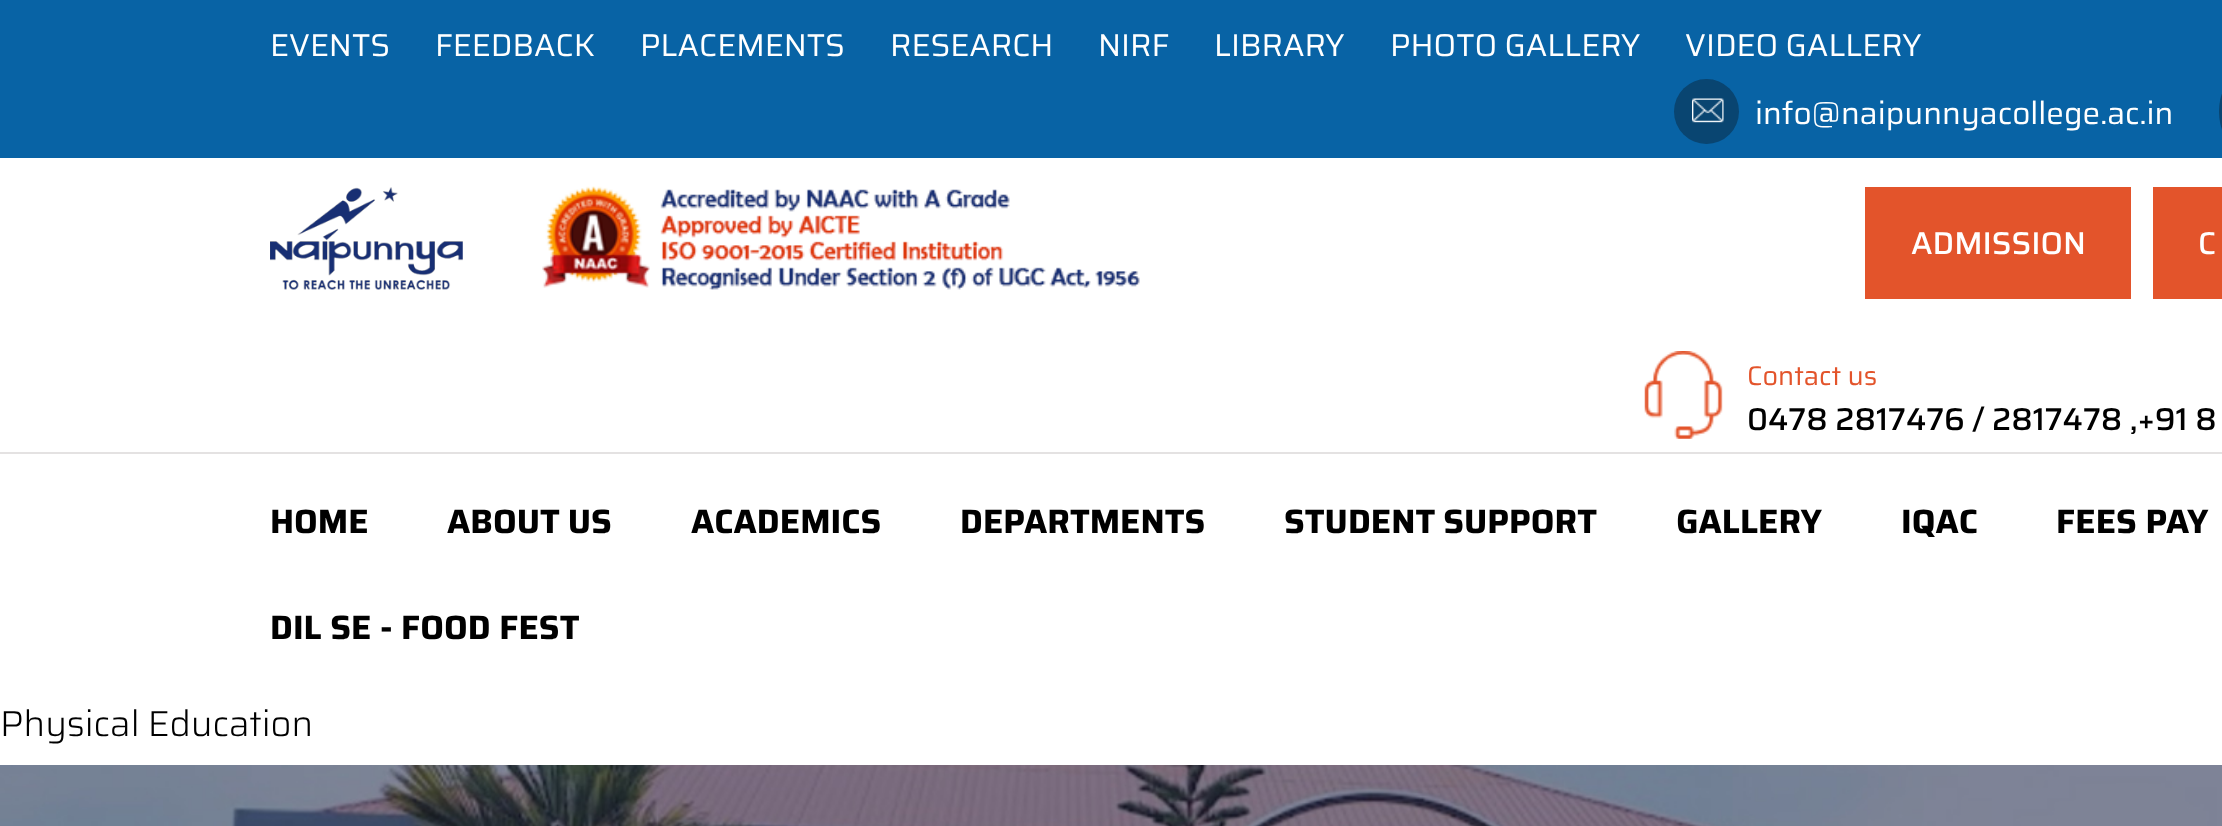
<?xml version="1.0" encoding="UTF-8"?>
<svg xmlns="http://www.w3.org/2000/svg" width="2222" height="826">
    <rect width="100%" height="100%" fill="#FFFFFF"/>
    <rect x="0" y="0" width="2222" height="158" fill="#0863A5"/>
    <text x="270" y="56" font-family="Saira" font-size="31.5" fill="#FFFFFF">EVENTS</text>
    <text x="435" y="56" font-family="Saira" font-size="31.5" fill="#FFFFFF">FEEDBACK</text>
    <text x="640" y="56" font-family="Saira" font-size="31.5" fill="#FFFFFF">PLACEMENTS</text>
    <text x="890" y="56" font-family="Saira" font-size="31.5" fill="#FFFFFF">RESEARCH</text>
    <text x="1098" y="56" font-family="Saira" font-size="31.5" fill="#FFFFFF">NIRF</text>
    <text x="1214" y="56" font-family="Saira" font-size="31.5" fill="#FFFFFF">LIBRARY</text>
    <text x="1390" y="56" font-family="Saira" font-size="31.5" fill="#FFFFFF">PHOTO GALLERY</text>
    <text x="1685" y="56" font-family="Saira" font-size="31.5" fill="#FFFFFF">VIDEO GALLERY</text>
    <circle cx="1706.5" cy="111.5" r="32.5" fill="#094571"/>
    <image x="1692" y="98" width="32" height="25" href="img_01.png"/>
    <text x="1755" y="124" font-family="Saira" font-size="31.5" fill="#FFFFFF">info@naipunnyacollege.ac.in</text>
    <rect x="2219" y="79" width="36" height="65" rx="32.5" fill="#094571"/>
    <rect x="0" y="452" width="2222" height="2" fill="#E4E2E2"/>
    <image x="270" y="187" width="193" height="103" href="img_02.png"/>
    <image x="542" y="186" width="598" height="104" href="img_03.png"/>
    <rect x="1865" y="187" width="266" height="112" fill="#E3542B"/>
    <text x="1911" y="254" font-family="Saira" font-size="31.5" font-weight="500" fill="#FFFFFF">ADMISSION</text>
    <rect x="2153" y="187" width="69" height="112" fill="#E3542B"/>
    <text x="2198" y="254" font-family="Saira" font-size="31.5" font-weight="500" fill="#FFFFFF">C</text>
    <image x="1644" y="351" width="79" height="88" href="img_04.png"/>
    <text x="1747" y="385" font-family="Saira" font-size="27" fill="#E3542B">Contact us</text>
    <text x="1747" y="430" font-family="Saira" font-size="31.5" font-weight="500" fill="#000000">0478 2817476 / 2817478 ,+91 8</text>
    <text x="270" y="533" font-family="Saira" font-size="33.75" font-weight="700" fill="#000000">HOME</text>
    <text x="447" y="533" font-family="Saira" font-size="33.75" font-weight="700" fill="#000000">ABOUT US</text>
    <text x="691" y="533" font-family="Saira" font-size="33.75" font-weight="700" fill="#000000">ACADEMICS</text>
    <text x="960" y="533" font-family="Saira" font-size="33.75" font-weight="700" fill="#000000">DEPARTMENTS</text>
    <text x="1284" y="533" font-family="Saira" font-size="33.75" font-weight="700" fill="#000000">STUDENT SUPPORT</text>
    <text x="1676" y="533" font-family="Saira" font-size="33.75" font-weight="700" fill="#000000">GALLERY</text>
    <text x="1901" y="533" font-family="Saira" font-size="33.75" font-weight="700" fill="#000000">IQAC</text>
    <text x="2056" y="533" font-family="Saira" font-size="33.75" font-weight="700" fill="#000000">FEES PAY</text>
    <text x="270" y="639" font-family="Saira" font-size="33.75" font-weight="700" fill="#000000">DIL SE - FOOD FEST</text>
    <text x="0" y="736" font-family="Saira" font-size="36" font-weight="300" fill="#000000">Physical Education</text>
    <image x="0" y="765" width="2222" height="61" href="img_05.png"/>
</svg>
